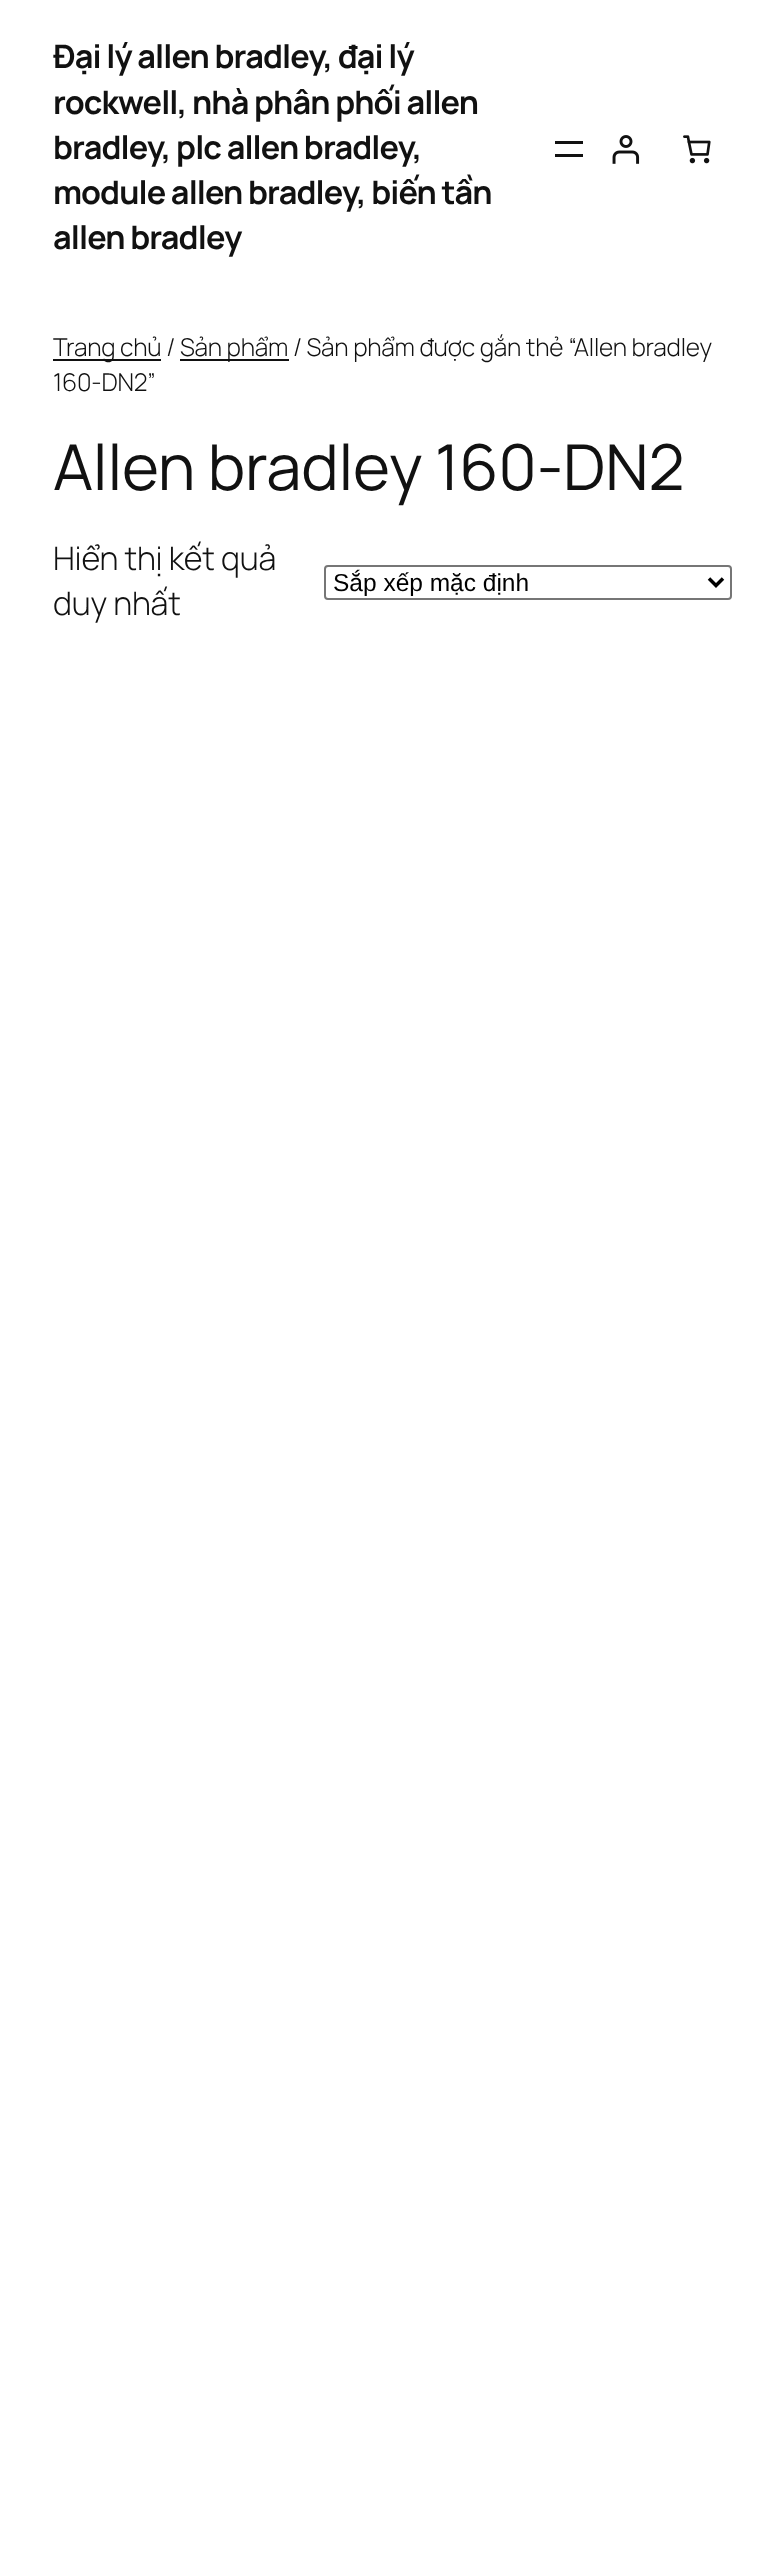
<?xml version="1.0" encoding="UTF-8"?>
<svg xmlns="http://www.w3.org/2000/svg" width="783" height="2559">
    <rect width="100%" height="100%" fill="#FFFFFF"/>
    <text font-family="Manrope" font-size="32.4" font-weight="700" letter-spacing="-0.9" fill="#111111">
        <tspan x="53" y="68">Đại lý allen bradley, đại lý</tspan>
        <tspan x="53" y="114">rockwell, nhà phân phối allen</tspan>
        <tspan x="53" y="159">bradley, plc allen bradley,</tspan>
        <tspan x="53" y="204">module allen bradley, biến tần</tspan>
        <tspan x="53" y="249">allen bradley</tspan>
    </text>
    <rect x="555" y="141" width="28" height="3" fill="#111111"/>
    <rect x="555" y="154" width="28" height="3" fill="#111111"/>
    <image x="612" y="135" width="28" height="29" href="img_01.png"/>
    <image x="683" y="135" width="28" height="29" href="img_02.png"/>
    <rect x="53" y="359" width="108" height="2" fill="#111111"/>
    <text x="53" y="356" font-family="Manrope" font-size="24.5" font-weight="300" letter-spacing="-0.2" fill="#111111">Trang chủ /</text>
    <rect x="180" y="359" width="109" height="2" fill="#111111"/>
    <text x="180" y="356" font-family="Manrope" font-size="24.5" font-weight="300" letter-spacing="-0.2" fill="#111111">Sản phẩm / Sản phẩm được gắn thẻ “Allen bradley</text>
    <text x="53" y="391" font-family="Manrope" font-size="24.5" font-weight="300" letter-spacing="-0.2" fill="#111111">160-DN2”</text>
    <text x="53" y="490" font-family="Manrope" font-size="63.25" letter-spacing="-0.2" fill="#111111">Allen bradley 160-DN2</text>
    <text font-family="Manrope" font-size="32.4" font-weight="300" letter-spacing="-0.2" fill="#111111">
        <tspan x="53" y="570">Hiển thị kết quả</tspan>
        <tspan x="53" y="615">duy nhất</tspan>
    </text>
    <rect x="325" y="566" width="406" height="33" rx="3" fill="none" stroke="#767676" stroke-width="2"/>
    <path d="M 709 578.5 L 716 585.5 L 723 578.5" fill="none" stroke="#000000" stroke-width="3.5"/>
    <text x="333" y="591" font-family="Liberation Sans" font-size="24.5" fill="#000000">Sắp xếp mặc định</text>
</svg>
